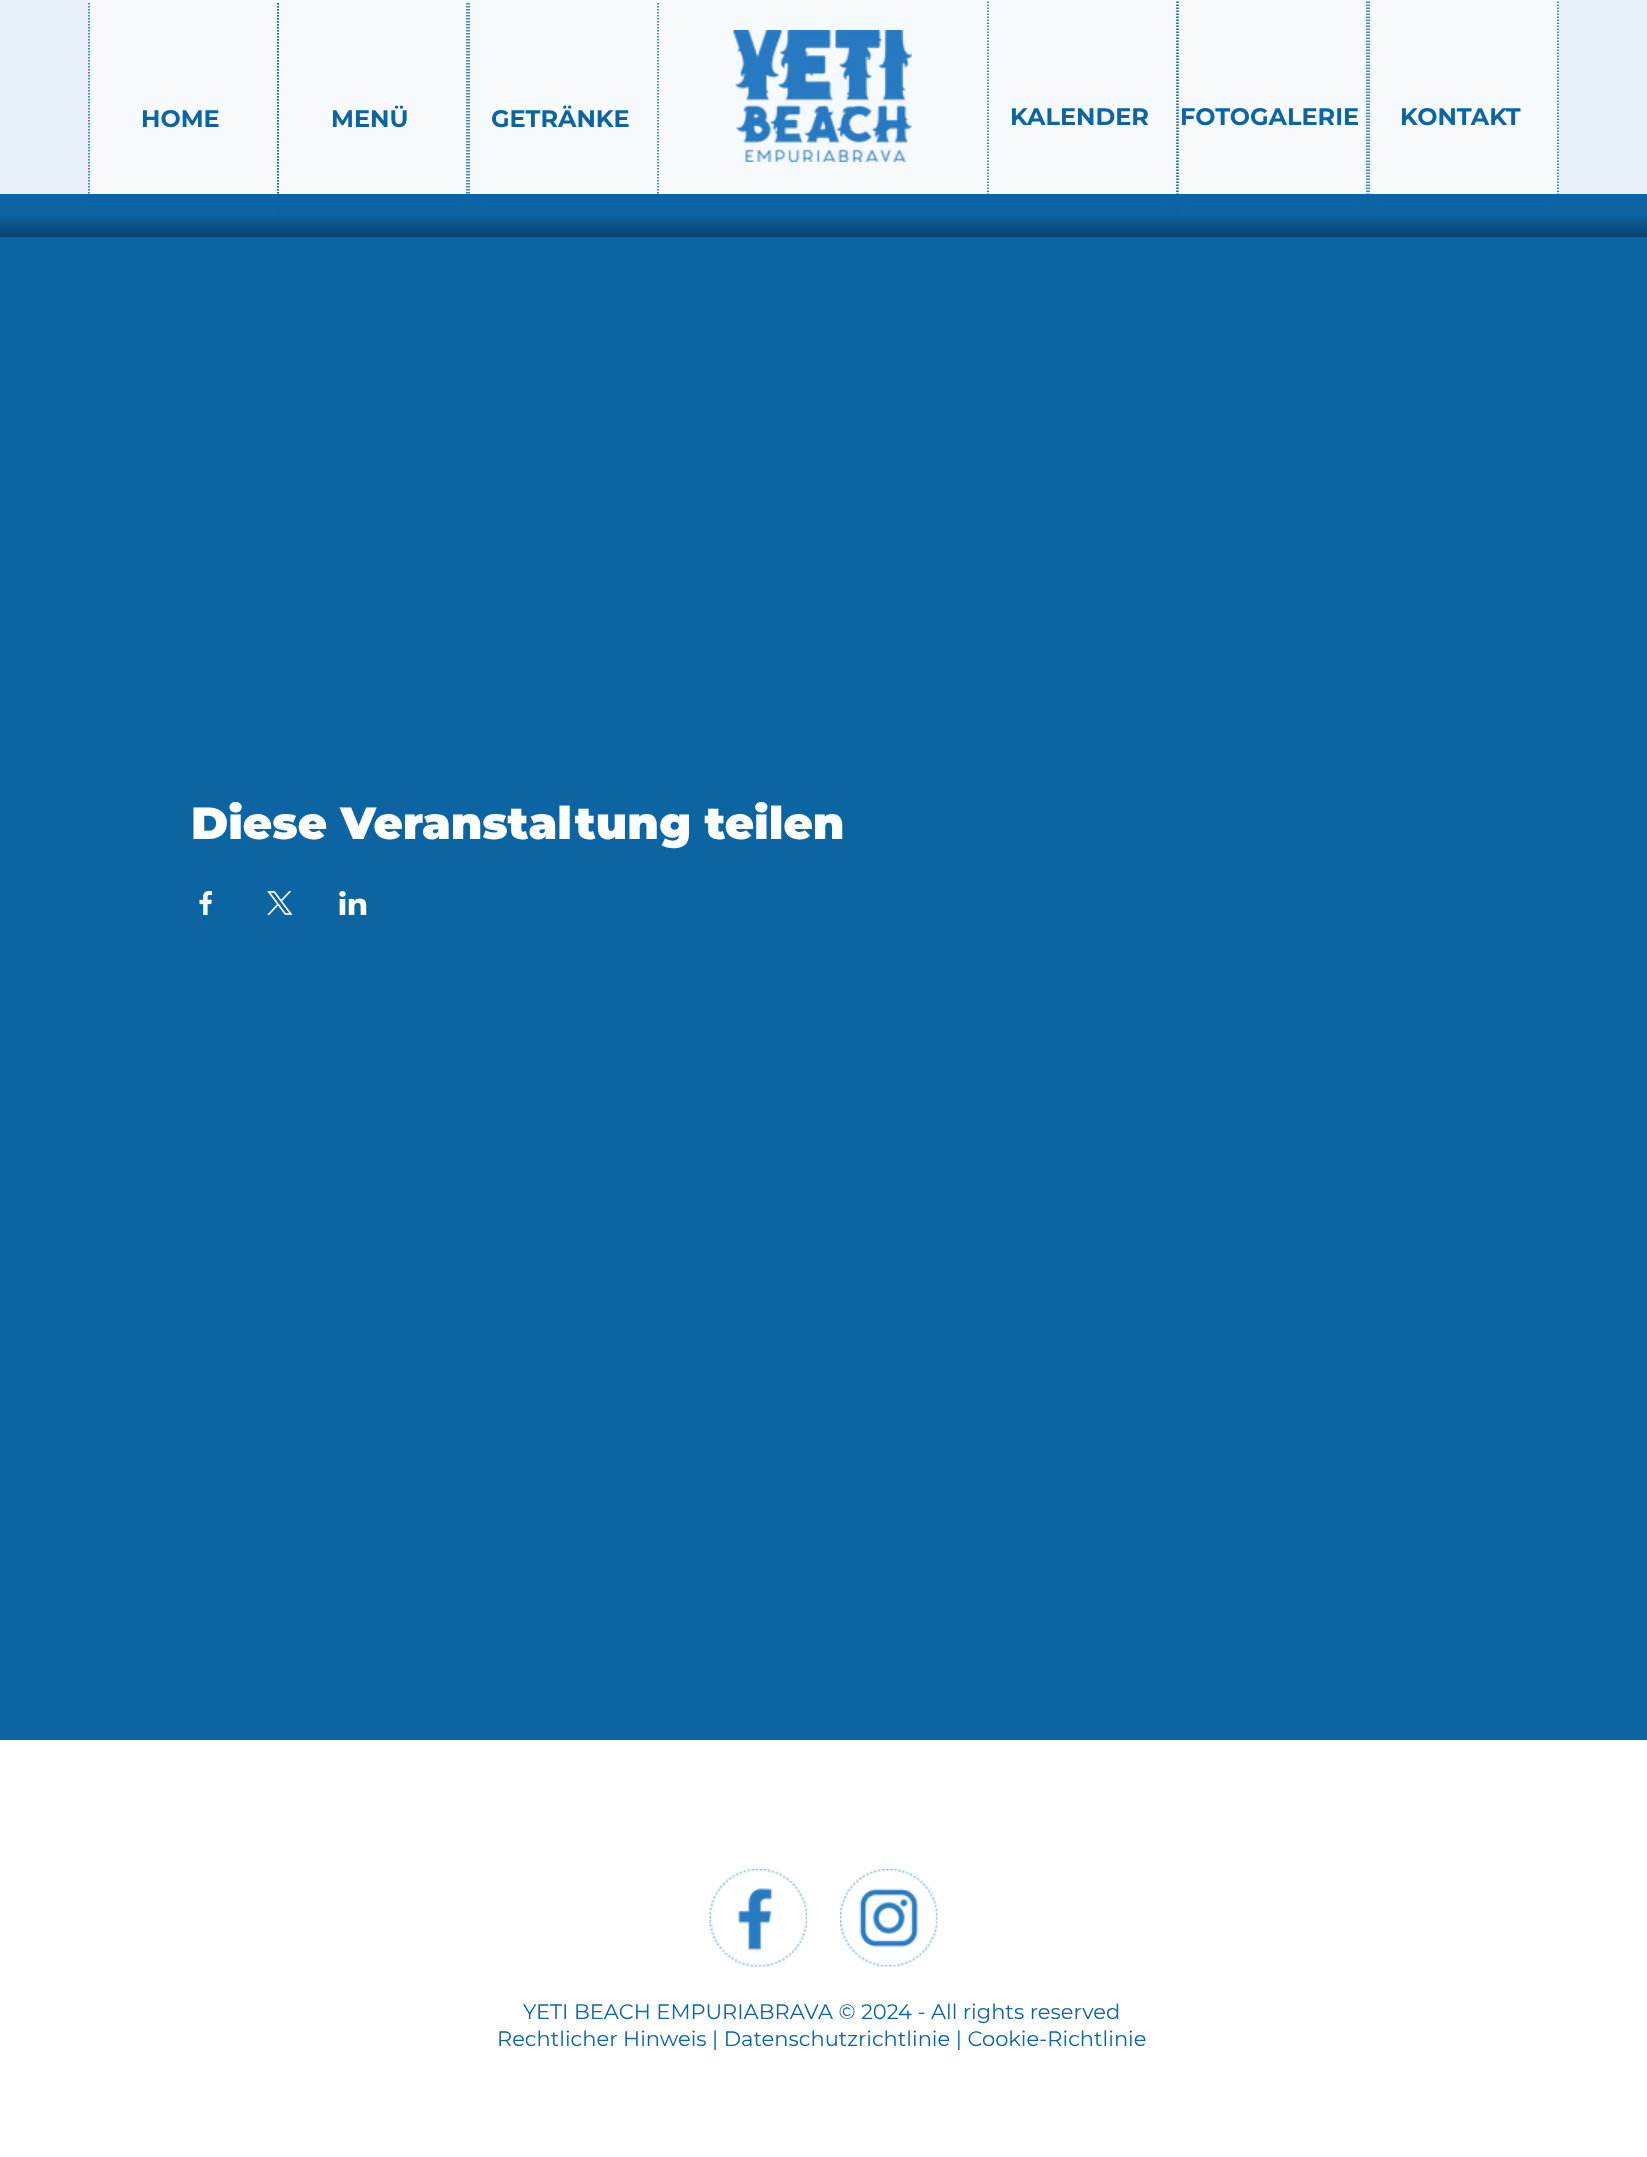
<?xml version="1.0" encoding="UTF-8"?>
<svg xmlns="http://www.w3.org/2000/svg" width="1647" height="2157">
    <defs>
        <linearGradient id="g1" gradientUnits="userSpaceOnUse" x1="824" y1="237" x2="824" y2="194"><stop offset="0" stop-color="#0A416A"/><stop offset="0.52" stop-color="#0D64A3"/></linearGradient>
    </defs>
    <rect width="100%" height="100%" fill="#0D64A3"/>
    <rect x="0" y="0" width="1647" height="194" fill="#E7F0F6"/>
    <rect x="89" y="0" width="1470" height="194" fill="#F7FAFC"/>
    <path d="M 278 3 V 234" fill="none" stroke="#0D64A3" stroke-width="1.5" stroke-dasharray="1.5 1.5"/>
    <path d="M 89 3 V 234" fill="none" stroke="#0D64A3" stroke-width="1.5" stroke-dasharray="1.5 1.5"/>
    <text x="141" y="127" font-family="Montserrat" font-size="24" font-weight="700" fill="#0D64A3">HOME</text>
    <path d="M 467 3 V 234" fill="none" stroke="#0D64A3" stroke-width="1.5" stroke-dasharray="1.5 1.5"/>
    <path d="M 278 3 V 234" fill="none" stroke="#0D64A3" stroke-width="1.5" stroke-dasharray="1.5 1.5"/>
    <text x="331" y="127" font-family="Montserrat" font-size="24" font-weight="700" fill="#0D64A3">MENÜ</text>
    <path d="M 658 3 V 234" fill="none" stroke="#0D64A3" stroke-width="1.5" stroke-dasharray="1.5 1.5"/>
    <path d="M 469 3 V 234" fill="none" stroke="#0D64A3" stroke-width="1.5" stroke-dasharray="1.5 1.5"/>
    <text x="491" y="127" font-family="Montserrat" font-size="24" font-weight="700" fill="#0D64A3">GETRÄNKE</text>
    <image x="733" y="30" width="179" height="132" href="img_01.png"/>
    <path d="M 1177 1.5 V 232.5" fill="none" stroke="#0D64A3" stroke-width="1.5" stroke-dasharray="1.5 1.5"/>
    <path d="M 988 1.5 V 232.5" fill="none" stroke="#0D64A3" stroke-width="1.5" stroke-dasharray="1.5 1.5"/>
    <text x="1010" y="125" font-family="Montserrat" font-size="24" font-weight="700" fill="#0D64A3">KALENDER</text>
    <path d="M 1367 1.5 V 232.5" fill="none" stroke="#0D64A3" stroke-width="1.5" stroke-dasharray="1.5 1.5"/>
    <path d="M 1178 1.5 V 232.5" fill="none" stroke="#0D64A3" stroke-width="1.5" stroke-dasharray="1.5 1.5"/>
    <text x="1180" y="125" font-family="Montserrat" font-size="24" font-weight="700" fill="#0D64A3">FOTOGALERIE</text>
    <path d="M 1558 1.5 V 232.5" fill="none" stroke="#0D64A3" stroke-width="1.5" stroke-dasharray="1.5 1.5"/>
    <path d="M 1369 1.5 V 232.5" fill="none" stroke="#0D64A3" stroke-width="1.5" stroke-dasharray="1.5 1.5"/>
    <text x="1400" y="125" font-family="Montserrat" font-size="24" font-weight="700" fill="#0D64A3">KONTAKT</text>
    <rect x="0" y="216" width="1647" height="21" fill="url(#g1)"/>
    <text x="191" y="839" font-family="Montserrat" font-size="45" font-weight="100" fill="#FFFFFF">Diese Veranstaltung teilen</text>
    <image x="199" y="891" width="13" height="24" href="img_02.png"/>
    <image x="267" y="891" width="26" height="24" href="img_03.png"/>
    <image x="339" y="891" width="28" height="24" href="img_04.png"/>
    <rect x="0" y="1740" width="1647" height="417" fill="#FFFFFF"/>
    <image x="709" y="1869" width="98" height="98" href="img_05.png"/>
    <image x="840" y="1869" width="98" height="98" href="img_06.png"/>
    <text x="523" y="2019" font-family="Montserrat" font-size="21" fill="#0D64A3">YETI BEACH EMPURIABRAVA © 2024 - All rights reserved</text>
    <text x="497" y="2046" font-family="Montserrat" font-size="21" fill="#0D64A3">Rechtlicher Hinweis | Datenschutzrichtlinie | Cookie-Richtlinie</text>
</svg>
